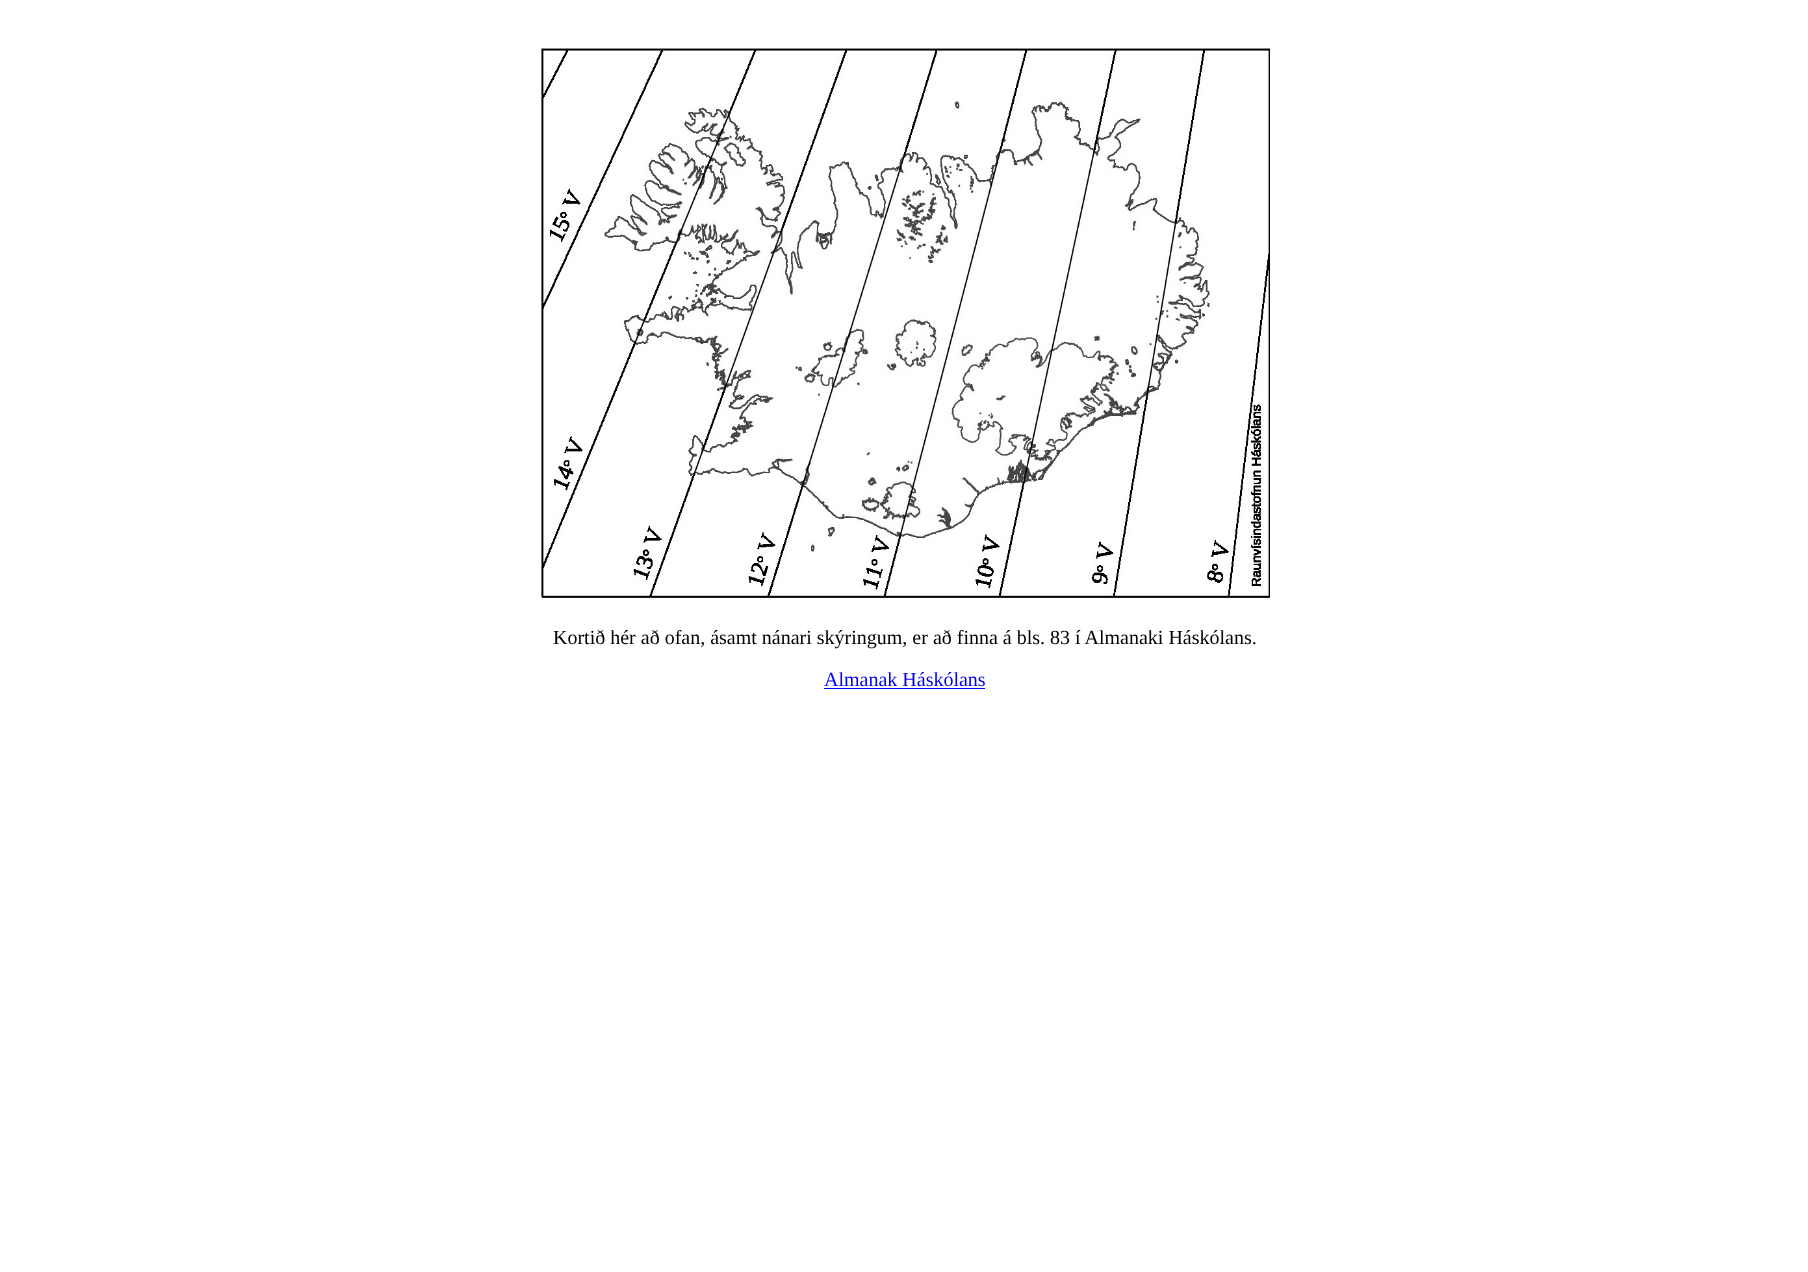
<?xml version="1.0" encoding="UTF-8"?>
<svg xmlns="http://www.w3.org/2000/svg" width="1808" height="1272">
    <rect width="100%" height="100%" fill="#FFFFFF"/>
    <image x="541" y="48" width="729" height="552" href="img_01.png"/>
    <text x="553" y="644" font-family="Liberation Serif" font-size="20" fill="#000000">Kortið hér að ofan, ásamt nánari skýringum, er að finna á bls. 83 í Almanaki Háskólans.</text>
    <text x="824" y="686" font-family="Liberation Serif" font-size="20" fill="#0000FF">Almanak Háskólans</text>
    <rect x="824" y="688" width="161" height="1" fill="#0000FF"/>
</svg>
